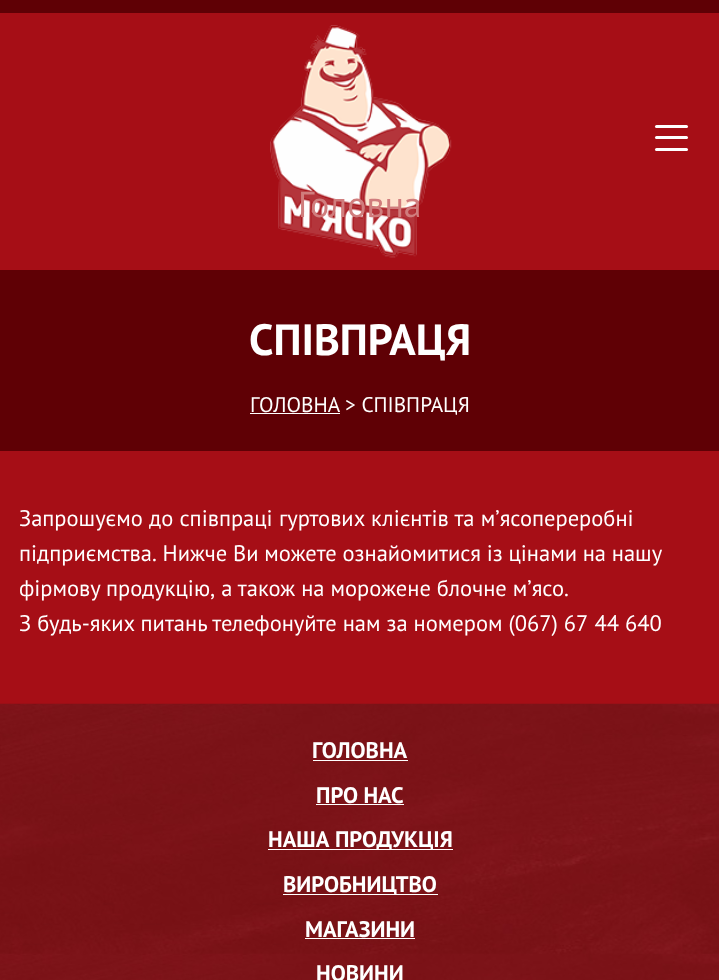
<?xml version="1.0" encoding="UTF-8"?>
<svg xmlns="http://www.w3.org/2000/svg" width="719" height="980">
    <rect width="100%" height="100%" fill="#A60E16"/>
    <rect x="0" y="0" width="719" height="13" fill="#5F0005"/>
    <rect x="655" y="136" width="33" height="3" rx="1.5" fill="#FFFFFF"/>
    <rect x="655" y="125" width="33" height="3" rx="1.5" fill="#FFFFFF"/>
    <rect x="655" y="148" width="33" height="3" rx="1.5" fill="#FFFFFF"/>
    <image x="270" y="25" width="182" height="233" href="img_01.png"/>
    <text x="298" y="217" font-family="PT Sans" font-size="36" fill="#D07D7D">Головна</text>
    <rect x="0" y="270" width="719" height="181" fill="#5F0005"/>
    <text x="249" y="355" font-family="PT Sans" font-size="43.75" font-weight="700" fill="#FFFFFF">СПІВПРАЦЯ</text>
    <rect x="250" y="413" width="90" height="1" fill="#FFFFFF"/>
    <text x="250" y="412" font-family="PT Sans" font-size="21.25" fill="#FFFFFF">ГОЛОВНА &gt; СПІВПРАЦЯ</text>
    <text font-family="PT Sans" font-size="22.5" fill="#FFFFFF">
        <tspan x="19" y="526" word-spacing="0.25">Запрошуємо до співпраці гуртових клієнтів та м’ясопереробні</tspan>
        <tspan x="19" y="561" word-spacing="-0.25">підприємства. Нижче Ви можете ознайомитися із цінами на нашу</tspan>
        <tspan x="19" y="596">фірмову продукцію, а також на морожене блочне м’ясо.</tspan>
        <tspan x="19" y="631">З будь-яких питань телефонуйте нам за номером (067) 67 44 640</tspan>
    </text>
    <image x="0" y="703" width="719" height="277" href="img_02.png"/>
    <text x="312" y="758" font-family="PT Sans" font-size="22.5" font-weight="700" fill="#FFFFFF">ГОЛОВНА</text>
    <rect x="313" y="760" width="95" height="1" fill="#FFFFFF"/>
    <text x="316" y="803" font-family="PT Sans" font-size="22.5" font-weight="700" fill="#FFFFFF">ПРО НАС</text>
    <rect x="316" y="804" width="88" height="1" fill="#FFFFFF"/>
    <rect x="268" y="849" width="185" height="1" fill="#FFFFFF"/>
    <text x="268" y="847" word-spacing="1" font-family="PT Sans" font-size="22.5" font-weight="700" fill="#FFFFFF">НАША ПРОДУКЦІЯ</text>
    <rect x="283" y="894" width="155" height="1" fill="#FFFFFF"/>
    <text x="283" y="892" font-family="PT Sans" font-size="22.5" font-weight="700" fill="#FFFFFF">ВИРОБНИЦТВО</text>
    <text x="305" y="937" font-family="PT Sans" font-size="22.5" font-weight="700" fill="#FFFFFF">МАГАЗИНИ</text>
    <rect x="305" y="938" width="110" height="1" fill="#FFFFFF"/>
    <text x="316" y="981" font-family="PT Sans" font-size="22.5" font-weight="700" fill="#FFFFFF">НОВИНИ</text>
</svg>
